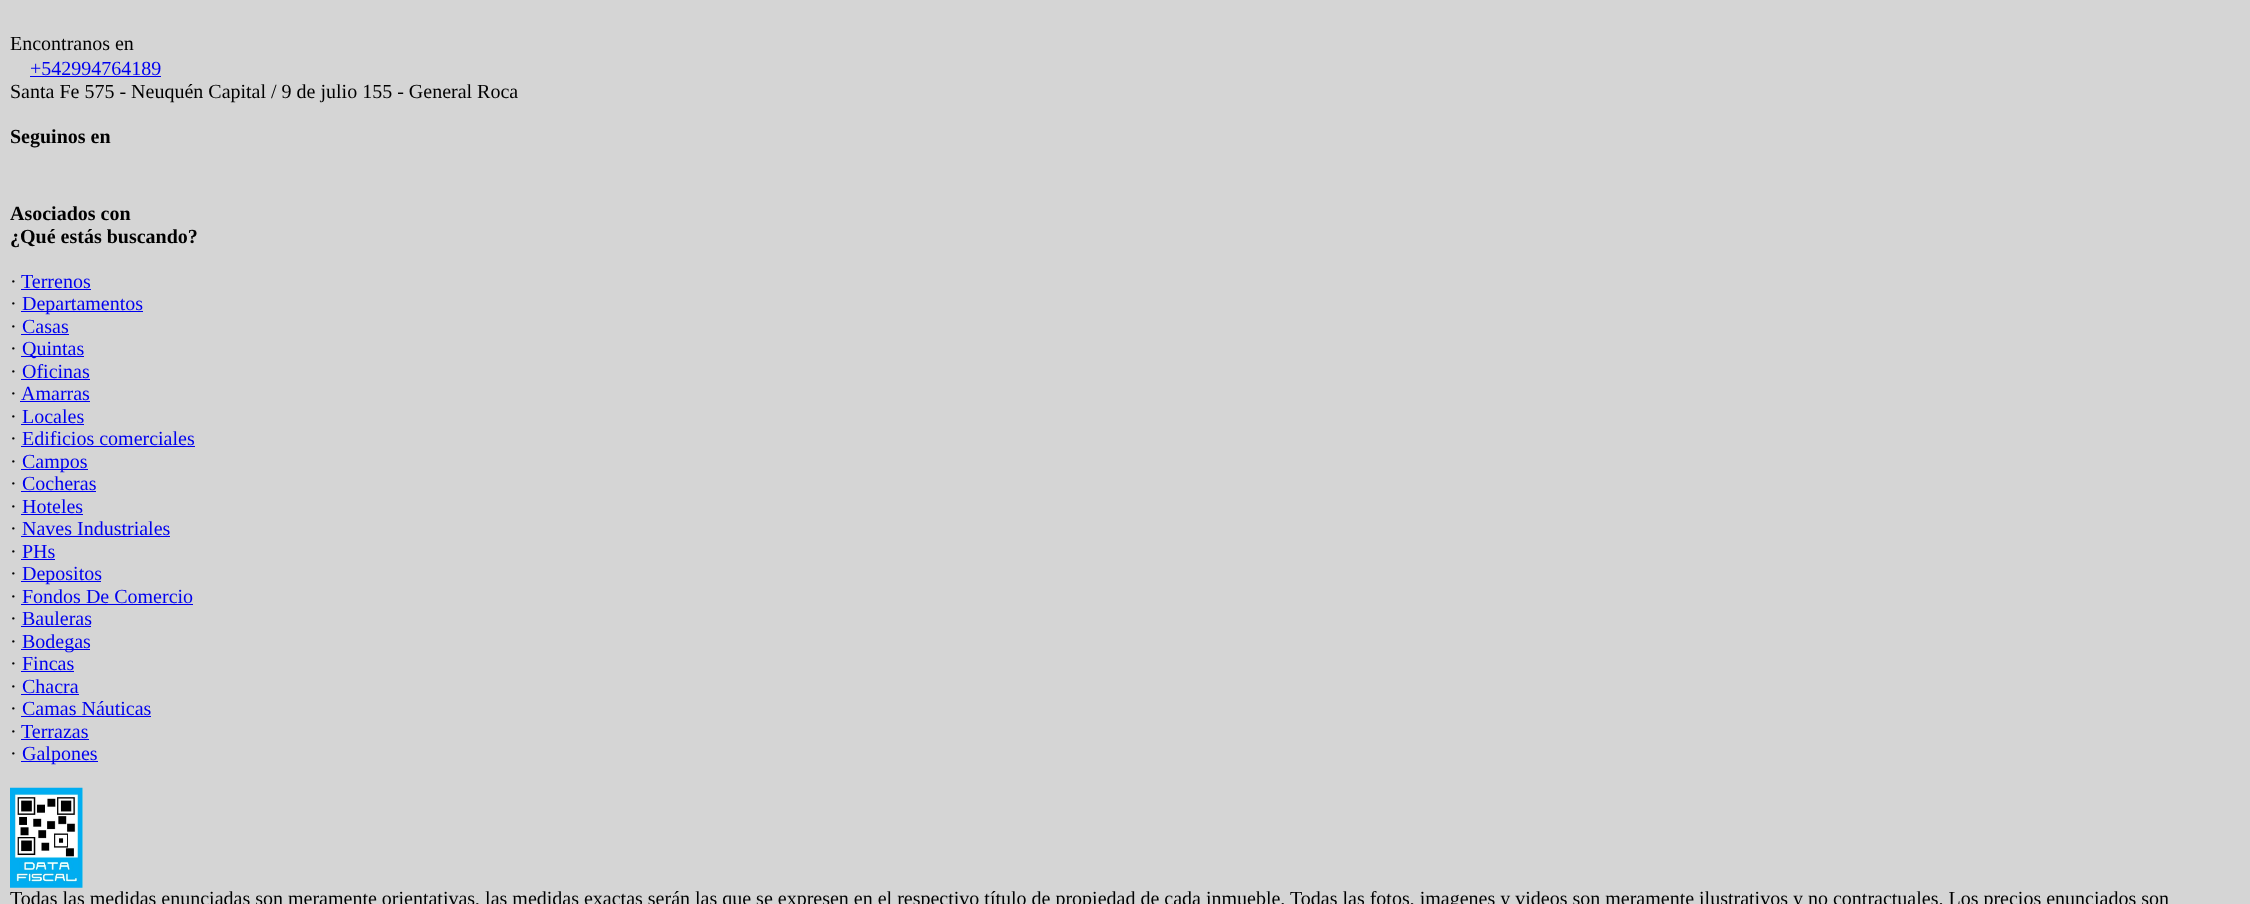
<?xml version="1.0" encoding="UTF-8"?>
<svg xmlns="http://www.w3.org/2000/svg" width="2250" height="904">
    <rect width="100%" height="100%" fill="#D5D5D5"/>
    <text x="10" y="50" font-family="Liberation Serif" font-size="20" fill="#000000">Encontranos en</text>
    <text x="30" y="75" font-family="Liberation Serif" font-size="20" fill="#0000EE">+542994764189</text>
    <rect x="30" y="76" width="131" height="1" fill="#0000EE"/>
    <text x="10" y="98" font-family="Liberation Serif" font-size="20" fill="#000000">Santa Fe 575 - Neuquén Capital / 9 de julio 155 - General Roca</text>
    <text x="10" y="143" font-family="Liberation Serif" font-size="20" font-weight="700" fill="#000000">Seguinos en</text>
    <text font-family="Liberation Serif" font-size="20" font-weight="700" fill="#000000">
        <tspan x="10" y="220">Asociados con</tspan>
        <tspan x="10" y="243">¿Qué estás buscando?</tspan>
    </text>
    <text x="10" y="288" font-family="Liberation Serif" font-size="20" fill="#000000">·</text>
    <text x="21" y="288" font-family="Liberation Serif" font-size="20" fill="#0000EE">Terrenos</text>
    <rect x="21" y="289" width="70" height="1" fill="#0000EE"/>
    <text x="10" y="310" font-family="Liberation Serif" font-size="20" fill="#000000">·</text>
    <rect x="21" y="311" width="122" height="1" fill="#0000EE"/>
    <text x="22" y="310" font-family="Liberation Serif" font-size="20" fill="#0000EE">Departamentos</text>
    <text x="10" y="333" font-family="Liberation Serif" font-size="20" fill="#000000">·</text>
    <text x="22" y="333" font-family="Liberation Serif" font-size="20" fill="#0000EE">Casas</text>
    <rect x="21" y="334" width="48" height="1" fill="#0000EE"/>
    <text x="10" y="355" font-family="Liberation Serif" font-size="20" fill="#000000">·</text>
    <rect x="21" y="356" width="63" height="1" fill="#0000EE"/>
    <text x="22" y="355" font-family="Liberation Serif" font-size="20" fill="#0000EE">Quintas</text>
    <text x="10" y="378" font-family="Liberation Serif" font-size="20" fill="#000000">·</text>
    <text x="22" y="378" font-family="Liberation Serif" font-size="20" fill="#0000EE">Oficinas</text>
    <rect x="21" y="379" width="69" height="1" fill="#0000EE"/>
    <text x="10" y="400" font-family="Liberation Serif" font-size="20" fill="#000000">·</text>
    <text x="21" y="400" font-family="Liberation Serif" font-size="20" fill="#0000EE">Amarras</text>
    <rect x="20" y="401" width="70" height="1" fill="#0000EE"/>
    <text x="10" y="423" font-family="Liberation Serif" font-size="20" fill="#000000">·</text>
    <text x="22" y="423" font-family="Liberation Serif" font-size="20" fill="#0000EE">Locales</text>
    <rect x="21" y="424" width="63" height="1" fill="#0000EE"/>
    <text x="10" y="445" font-family="Liberation Serif" font-size="20" fill="#000000">·</text>
    <text x="22" y="445" font-family="Liberation Serif" font-size="20" fill="#0000EE">Edificios comerciales</text>
    <rect x="21" y="446" width="174" height="1" fill="#0000EE"/>
    <text x="10" y="468" font-family="Liberation Serif" font-size="20" fill="#000000">·</text>
    <rect x="21" y="469" width="67" height="1" fill="#0000EE"/>
    <text x="22" y="468" font-family="Liberation Serif" font-size="20" fill="#0000EE">Campos</text>
    <text x="10" y="490" font-family="Liberation Serif" font-size="20" fill="#000000">·</text>
    <text x="22" y="490" font-family="Liberation Serif" font-size="20" fill="#0000EE">Cocheras</text>
    <rect x="21" y="491" width="75" height="1" fill="#0000EE"/>
    <text x="10" y="513" font-family="Liberation Serif" font-size="20" fill="#000000">·</text>
    <text x="22" y="513" font-family="Liberation Serif" font-size="20" fill="#0000EE">Hoteles</text>
    <rect x="21" y="514" width="62" height="1" fill="#0000EE"/>
    <text x="10" y="535" font-family="Liberation Serif" font-size="20" fill="#000000">·</text>
    <text x="22" y="535" font-family="Liberation Serif" font-size="20" fill="#0000EE">Naves Industriales</text>
    <rect x="21" y="536" width="149" height="1" fill="#0000EE"/>
    <text x="10" y="558" font-family="Liberation Serif" font-size="20" fill="#000000">·</text>
    <text x="22" y="558" font-family="Liberation Serif" font-size="20" fill="#0000EE">PHs</text>
    <rect x="21" y="559" width="34" height="1" fill="#0000EE"/>
    <text x="10" y="580" font-family="Liberation Serif" font-size="20" fill="#000000">·</text>
    <rect x="21" y="581" width="80" height="1" fill="#0000EE"/>
    <text x="22" y="580" font-family="Liberation Serif" font-size="20" fill="#0000EE">Depositos</text>
    <text x="10" y="603" font-family="Liberation Serif" font-size="20" fill="#000000">·</text>
    <text x="22" y="603" font-family="Liberation Serif" font-size="20" fill="#0000EE">Fondos De Comercio</text>
    <rect x="21" y="604" width="172" height="1" fill="#0000EE"/>
    <text x="10" y="625" font-family="Liberation Serif" font-size="20" fill="#000000">·</text>
    <text x="22" y="625" font-family="Liberation Serif" font-size="20" fill="#0000EE">Bauleras</text>
    <rect x="21" y="626" width="70" height="1" fill="#0000EE"/>
    <text x="10" y="648" font-family="Liberation Serif" font-size="20" fill="#000000">·</text>
    <rect x="21" y="649" width="69" height="1" fill="#0000EE"/>
    <text x="22" y="648" font-family="Liberation Serif" font-size="20" fill="#0000EE">Bodegas</text>
    <text x="10" y="670" font-family="Liberation Serif" font-size="20" fill="#000000">·</text>
    <text x="22" y="670" font-family="Liberation Serif" font-size="20" fill="#0000EE">Fincas</text>
    <rect x="21" y="671" width="53" height="1" fill="#0000EE"/>
    <text x="10" y="693" font-family="Liberation Serif" font-size="20" fill="#000000">·</text>
    <text x="22" y="693" font-family="Liberation Serif" font-size="20" fill="#0000EE">Chacra</text>
    <rect x="21" y="694" width="58" height="1" fill="#0000EE"/>
    <text x="10" y="715" font-family="Liberation Serif" font-size="20" fill="#000000">·</text>
    <text x="22" y="715" font-family="Liberation Serif" font-size="20" fill="#0000EE">Camas Náuticas</text>
    <rect x="21" y="716" width="130" height="1" fill="#0000EE"/>
    <text x="10" y="738" font-family="Liberation Serif" font-size="20" fill="#000000">·</text>
    <text x="21" y="738" font-family="Liberation Serif" font-size="20" fill="#0000EE">Terrazas</text>
    <rect x="21" y="739" width="68" height="1" fill="#0000EE"/>
    <text x="10" y="760" font-family="Liberation Serif" font-size="20" fill="#000000">·</text>
    <rect x="21" y="761" width="77" height="1" fill="#0000EE"/>
    <text x="22" y="760" font-family="Liberation Serif" font-size="20" fill="#0000EE">Galpones</text>
    <image x="10" y="787" width="73" height="101" href="img_01.png"/>
    <text x="10" y="905" font-family="Liberation Serif" font-size="20" fill="#000000">Todas las medidas enunciadas son meramente orientativas, las medidas exactas serán las que se expresen en el respectivo título de propiedad de cada inmueble. Todas las fotos, imagenes y videos son meramente ilustrativos y no contractuales. Los precios enunciados son</text>
</svg>
